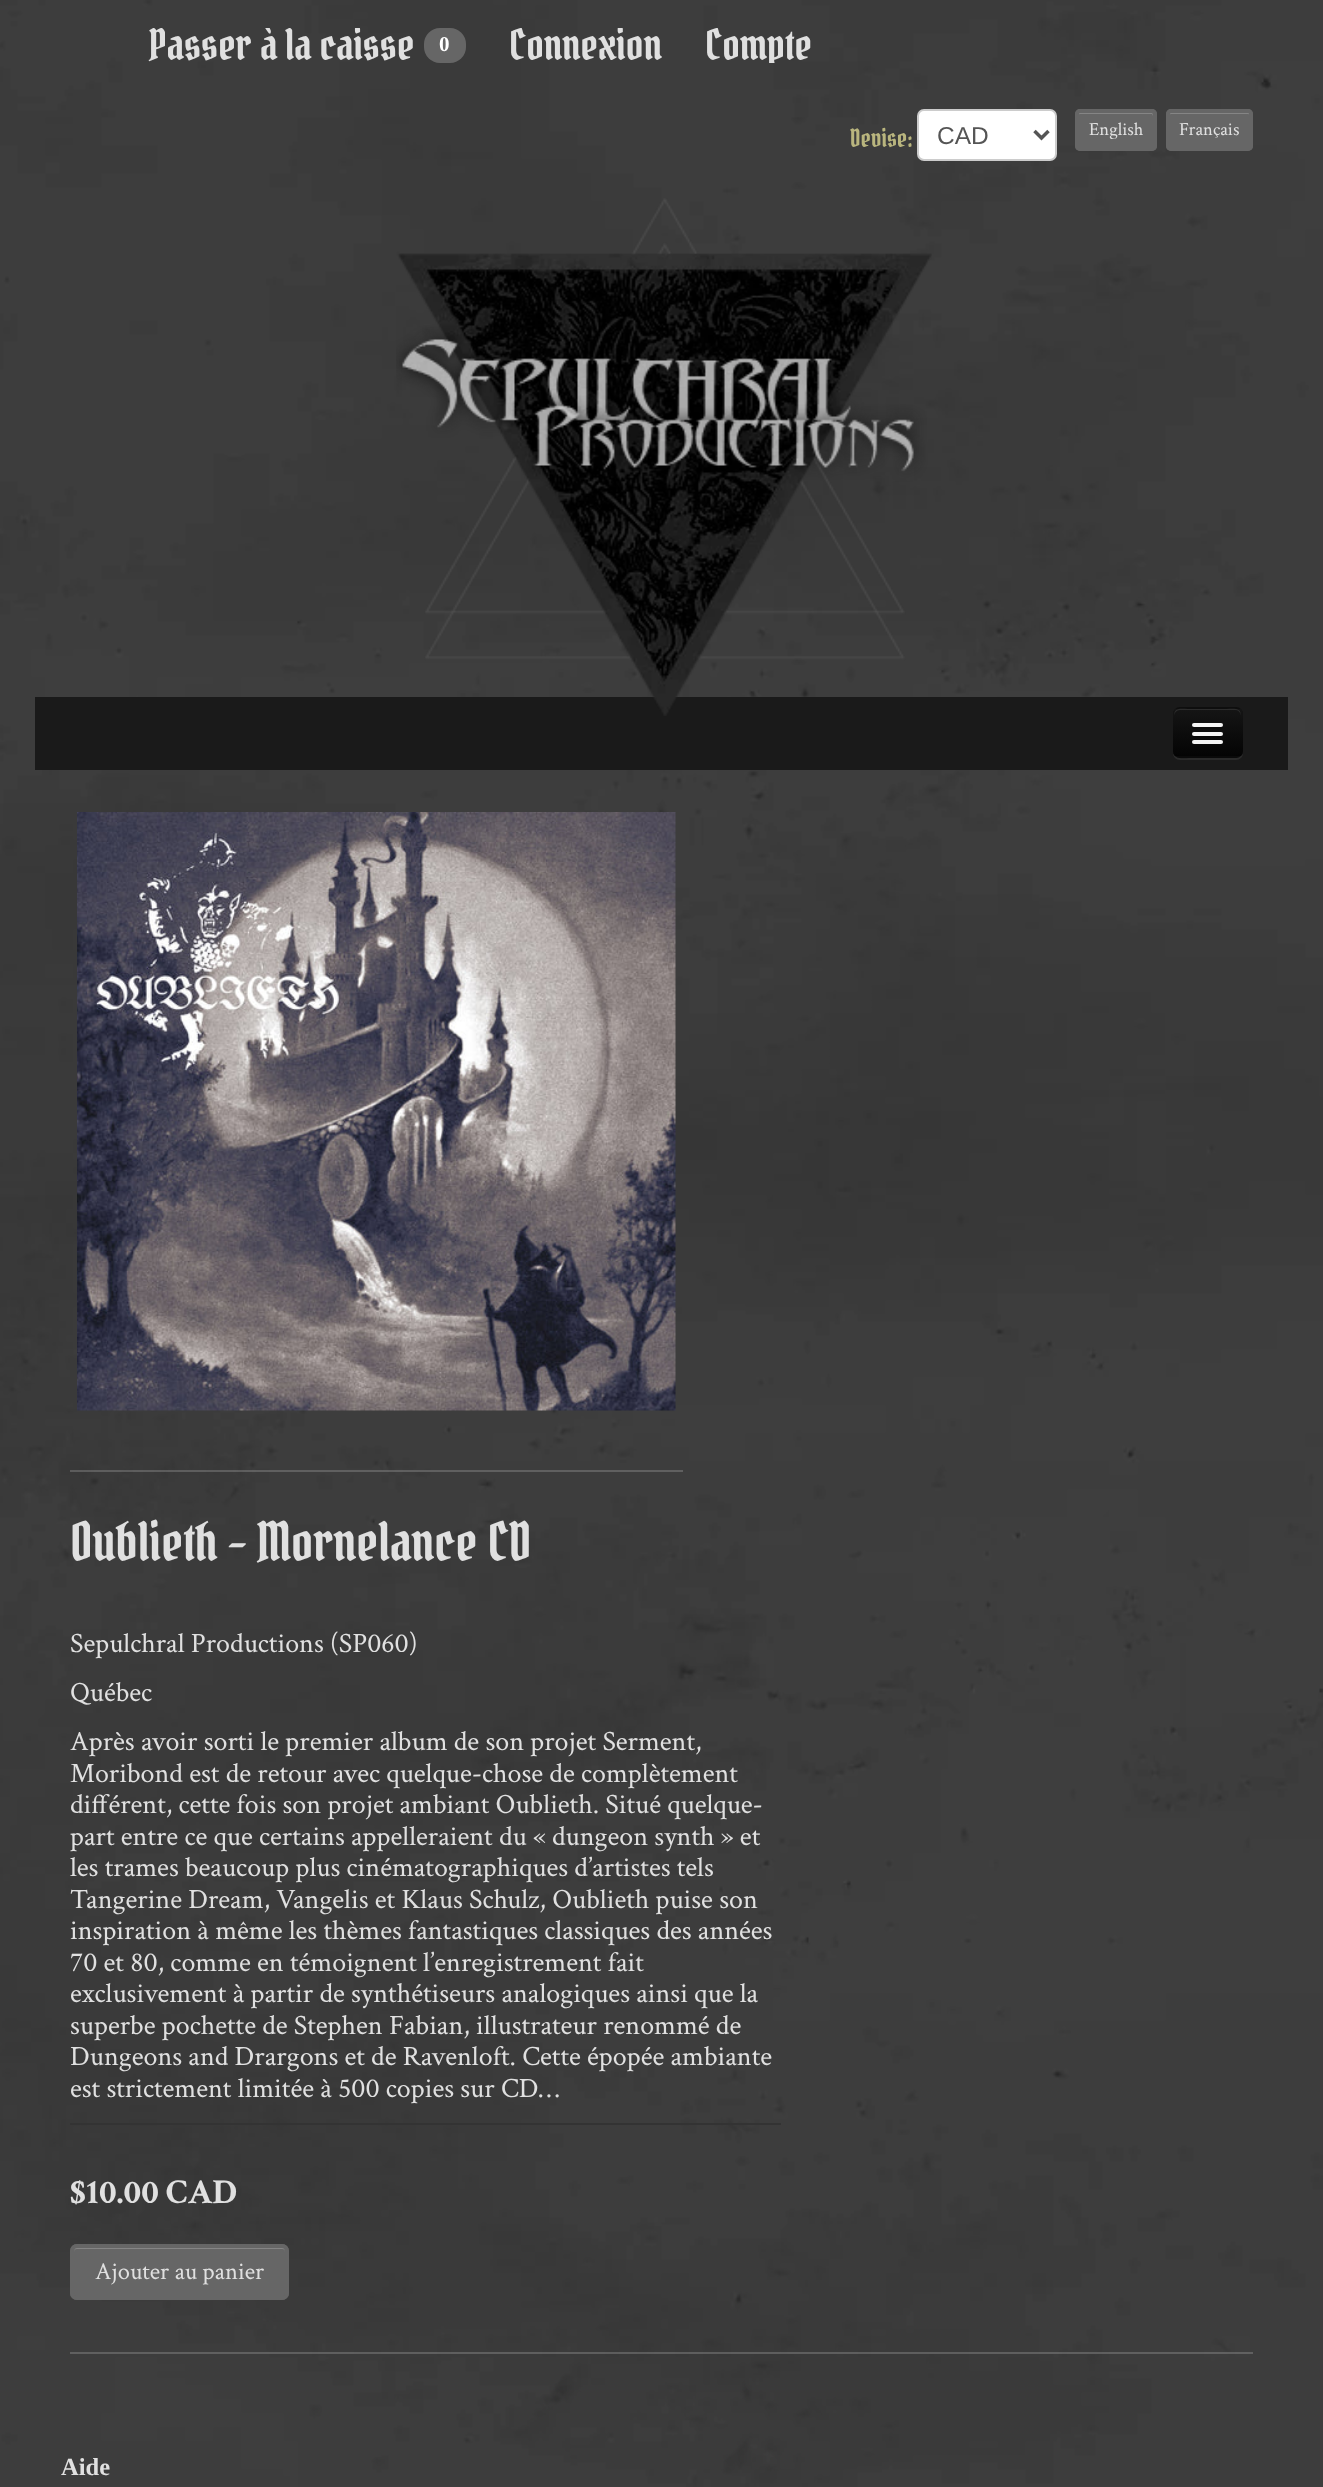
<?xml version="1.0" encoding="UTF-8"?>
<svg xmlns="http://www.w3.org/2000/svg" width="1323" height="2487">
    <defs>
        <clipPath id="clip1"><rect x="70" y="28" width="1183" height="35"/></clipPath>
        <clipPath id="clip2"><rect x="1173" y="707" width="70" height="51" rx="7"/></clipPath>
        <linearGradient id="g1" gradientUnits="userSpaceOnUse" x1="1208" y1="709" x2="1208" y2="756"><stop offset="0" stop-color="#151515"/><stop offset="1" stop-color="#040404"/></linearGradient>
    </defs>
    <rect width="100%" height="100%" fill="#FFFFFF"/>
    <image x="0" y="0" width="1323" height="2487" href="img_01.png"/>
    <g clip-path="url(#clip1)">
        <text x="149" y="60" font-family="Pirata One" font-size="42" fill="#E0E0E0">Passer à la caisse</text>
    </g>
    <rect x="424" y="28" width="42" height="35" rx="16" fill="#666666"/>
    <text x="439" y="51" font-family="Liberation Serif" font-size="21" font-weight="700" fill="#FFFFFF">0</text>
    <g clip-path="url(#clip1)">
        <text x="509" y="60" font-family="Pirata One" font-size="42" fill="#E0E0E0">Connexion</text>
        <text x="705" y="60" font-family="Pirata One" font-size="42" fill="#E0E0E0">Compte</text>
    </g>
    <text x="850" y="147" font-family="Pirata One" font-size="24.5" fill="#B9B57E">Devise:</text>
    <rect x="918" y="110" width="138" height="50" rx="6" fill="#FFFFFF" stroke="#CCCCCC" stroke-width="2"/>
    <path d="M 1034.5 131 L 1041.5 138 L 1048.5 131" fill="none" stroke="#555555" stroke-width="3.5"/>
    <text x="937" y="144" font-family="Liberation Sans" font-size="24.5" fill="#555555">CAD</text>
    <rect x="1075" y="109" width="82" height="42" rx="5" fill="#666666"/>
    <path d="M 1080 114 H 1152 L 1153 116 C 1153 109 1147 112 1139 112 H 1092 C 1084 112 1078 109 1078 116 C 1078 115 1079 114 1080 114 Z" fill="#858585"/>
    <rect x="1077" y="111" width="78" height="38" rx="3" fill="none" stroke="#666666" stroke-width="4"/>
    <text x="1089" y="135" font-family="Crimson Text" font-size="18.5" fill="#E0E0E0">English</text>
    <rect x="1166" y="109" width="87" height="42" rx="5" fill="#666666"/>
    <path d="M 1171 114 H 1248 C 1249 114 1250 115 1250 116 V 114 C 1250 113 1249 112 1248 112 H 1171 C 1170 112 1169 113 1169 114 V 116 C 1169 115 1170 114 1171 114 Z" fill="#858585"/>
    <rect x="1168" y="111" width="83" height="38" rx="3" fill="none" stroke="#666666" stroke-width="4"/>
    <text x="1179" y="135" font-family="Crimson Text" font-size="18.5" fill="#E0E0E0">Français</text>
    <rect x="35" y="697" width="1253" height="73" fill="#1A1A1A"/>
    <image x="396" y="198" width="536" height="518" href="img_02.png"/>
    <path d="M 1173 753 C 1173 757 1176 760 1180 760 H 1236 C 1240 760 1243 757 1243 753 V 716 L 1242 713 V 745 C 1242 759 1240 758 1226 758 H 1189 C 1184 758 1176 760 1173 753 Z" fill="#2B2B2B"/>
    <rect x="1173" y="707" width="70" height="51" rx="7" fill="#0E0E0E"/>
    <g clip-path="url(#clip2)">
        <rect x="1173" y="709" width="70" height="47" fill="url(#g1)"/>
    </g>
    <path d="M 1180 710 H 1236 C 1238 710 1241 713 1241 716 C 1241 707 1234 709 1226 709 H 1188 C 1181 709 1174 707 1174 716 C 1174 713 1177 710 1180 710 Z" fill="#2C2C2C"/>
    <path d="M 1240 755 C 1238.5 756 1237 757 1235.5 757 H 1179.5 C 1178 757 1176.5 756 1175 755" fill="none" stroke="#000000" stroke-opacity="0.25" stroke-width="1.8"/>
    <path d="M 1192.5 726 L 1192 727.5 C 1192.5 730 1197.5 729 1198.5 729 H 1216.5 C 1217.5 729 1222.5 730 1223 727.5 L 1222.5 726 C 1221.5 726.5 1193.5 726.5 1192.5 726 Z" fill="#0B0B0B"/>
    <rect x="1192" y="723" width="31" height="4" rx="2" fill="#F5F5F5"/>
    <path d="M 1192 734.5 C 1191 738 1197.5 737 1198.5 737 H 1216.5 C 1217.5 737 1224 738 1223 734.5 L 1221.5 735 H 1193.5 Z" fill="#080808"/>
    <rect x="1192" y="732" width="31" height="4" rx="2" fill="#F5F5F5"/>
    <rect x="1192" y="740" width="31" height="4" rx="2" fill="#F5F5F5"/>
    <image x="77" y="812" width="599" height="599" href="img_03.png"/>
    <rect x="70" y="1470" width="613" height="2" fill="#EEEEEE" fill-opacity="0.2"/>
    <text x="70" y="1561" font-family="Pirata One" font-size="52.5" fill="#E0E0E0">Oublieth - Mornelance CD</text>
    <rect x="70" y="2123" width="711" height="2" fill="#333333"/>
    <text font-family="Crimson Text" font-size="28" fill="#E0E0E0">
        <tspan x="70" y="1652">Sepulchral Productions (SP060)</tspan>
        <tspan x="70" y="1701">Québec</tspan>
        <tspan x="70" y="1750">Après avoir sorti le premier album de son projet Serment,</tspan>
        <tspan x="70" y="1782">Moribond est de retour avec quelque-chose de complètement</tspan>
        <tspan x="70" y="1813">différent, cette fois son projet ambiant Oublieth. Situé quelque-</tspan>
        <tspan x="70" y="1845">part entre ce que certains appelleraient du « dungeon synth » et</tspan>
        <tspan x="70" y="1876">les trames beaucoup plus cinématographiques d’artistes tels</tspan>
        <tspan x="70" y="1908">Tangerine Dream, Vangelis et Klaus Schulz, Oublieth puise son</tspan>
        <tspan x="70" y="1939">inspiration à même les thèmes fantastiques classiques des années</tspan>
        <tspan x="70" y="1971">70 et 80, comme en témoignent l’enregistrement fait</tspan>
        <tspan x="70" y="2002">exclusivement à partir de synthétiseurs analogiques ainsi que la</tspan>
        <tspan x="70" y="2034">superbe pochette de Stephen Fabian, illustrateur renommé de</tspan>
        <tspan x="70" y="2065">Dungeons and Drargons et de Ravenloft. Cette épopée ambiante</tspan>
        <tspan x="70" y="2097">est strictement limitée à 500 copies sur CD…</tspan>
    </text>
    <text x="70" y="2203" font-family="Crimson Text" font-size="35" font-weight="700" fill="#E0E0E0">$10.00 CAD</text>
    <rect x="70" y="2244" width="219" height="56" rx="7" fill="#666666"/>
    <path d="M 77 2249 H 282 C 284 2249 285 2250 285 2252 V 2251 C 285 2249 283 2247 281 2247 H 78 C 76 2247 74 2249 74 2251 V 2252 C 74 2250 75 2249 77 2249 Z" fill="#858585"/>
    <rect x="72" y="2246" width="215" height="52" rx="5" fill="none" stroke="#666666" stroke-width="4"/>
    <text x="95" y="2279" font-family="Crimson Text" font-size="24.5" fill="#E0E0E0">Ajouter au panier</text>
    <rect x="70" y="2352" width="1183" height="2" fill="#EEEEEE" fill-opacity="0.2"/>
    <text x="61" y="2475" font-family="Liberation Serif" font-size="24.5" font-weight="700" fill="#E0E0E0">Aide</text>
</svg>
